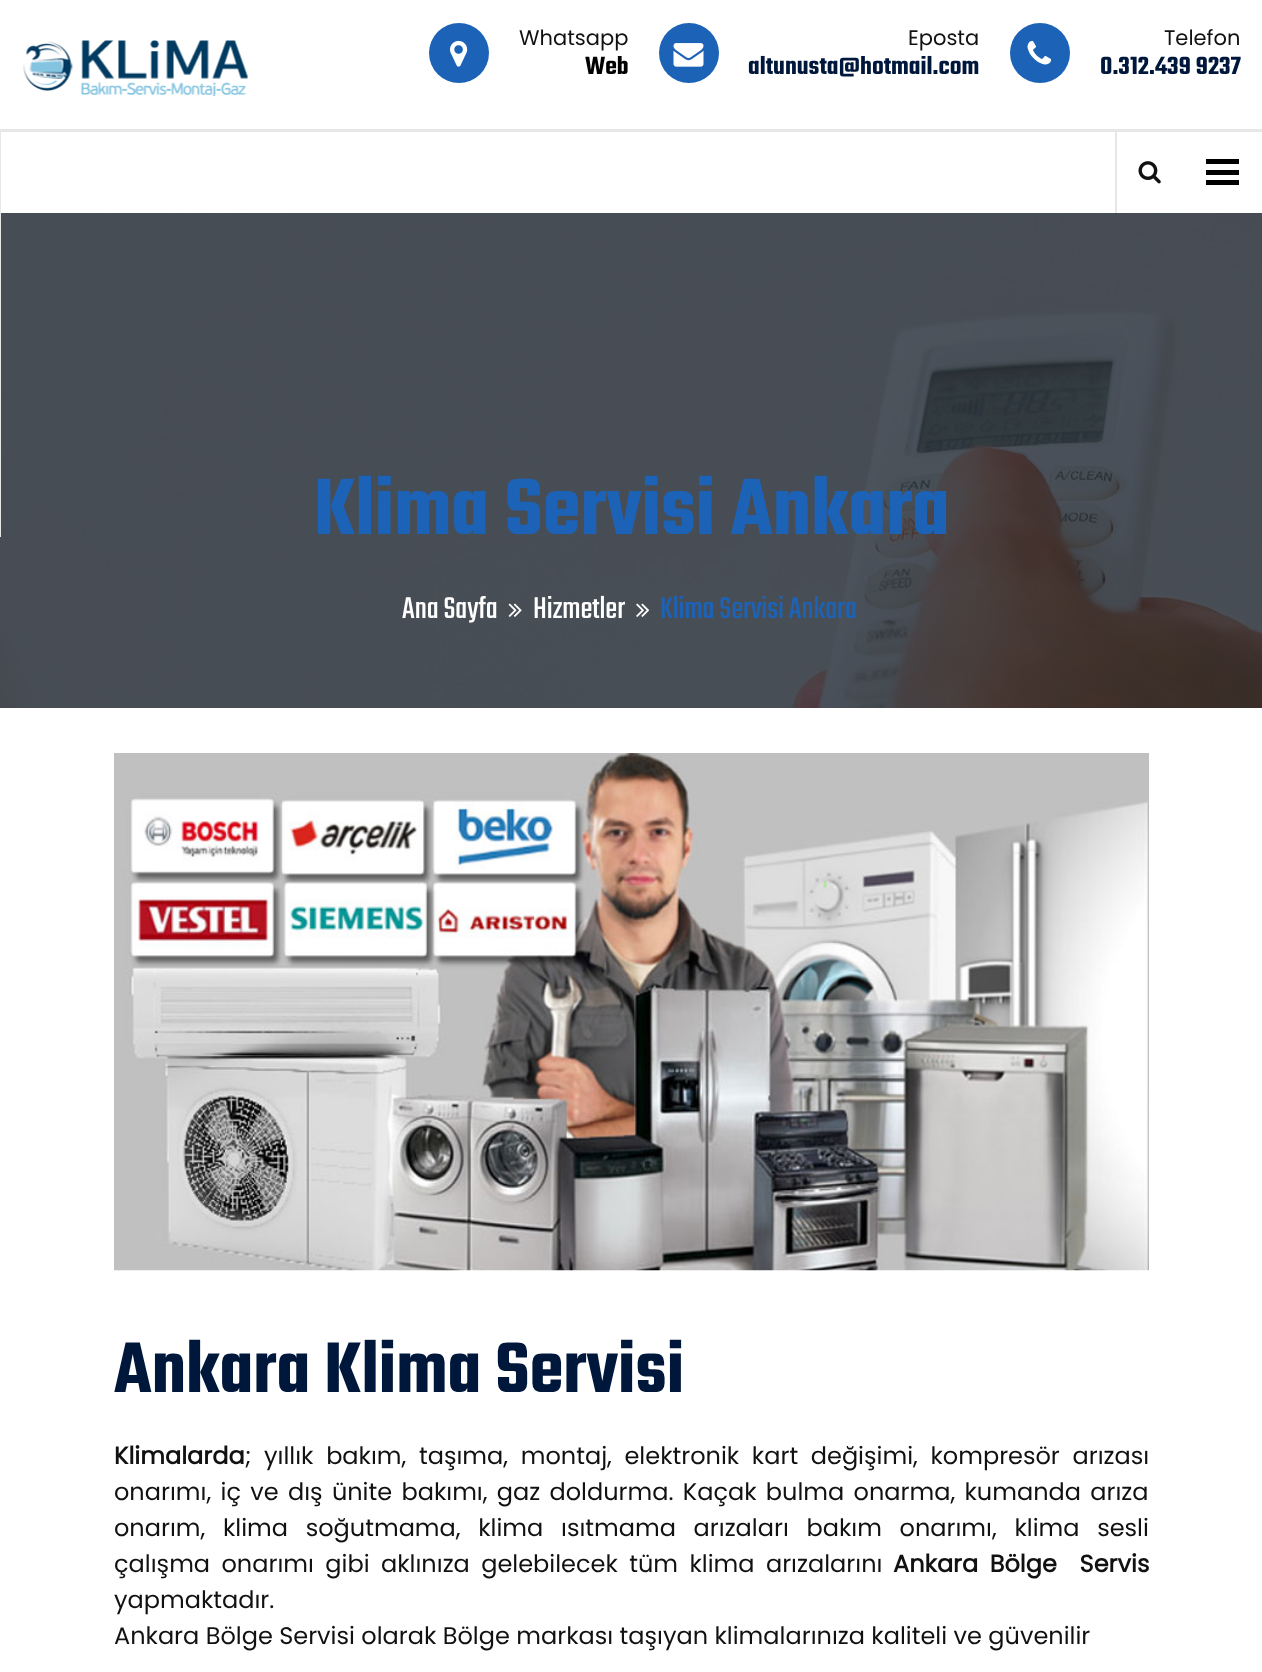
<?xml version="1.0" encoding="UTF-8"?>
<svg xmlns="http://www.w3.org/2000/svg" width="1262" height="1672">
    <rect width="100%" height="100%" fill="#FFFFFF"/>
    <image x="23" y="40" width="225" height="56" href="img_01.png"/>
    <circle cx="459" cy="53" r="30" fill="#1C63B8"/>
    <image x="450" y="40" width="18" height="27" href="img_02.png"/>
    <text x="519" y="45" font-family="Poppins" font-size="21" fill="#111111">Whatsapp</text>
    <text x="585" y="74" font-family="Teko" font-size="27" font-weight="600" fill="#000000">Web</text>
    <circle cx="689" cy="53" r="30" fill="#1C63B8"/>
    <image x="673" y="43" width="31" height="24" href="img_03.png"/>
    <text x="908" y="45" font-family="Poppins" font-size="21" fill="#111111">Eposta</text>
    <text x="748" y="74" font-family="Teko" font-size="27" font-weight="600" fill="#00173C">altunusta@hotmail.com</text>
    <circle cx="1040" cy="53" r="30" fill="#1C63B8"/>
    <image x="1027" y="40" width="25" height="25" href="img_04.png"/>
    <text x="1164" y="45" font-family="Poppins" font-size="21" fill="#111111">Telefon</text>
    <text x="1100" y="74" font-family="Teko" font-size="27" font-weight="600" fill="#00173C">0.312.439 9237</text>
    <rect x="0" y="129" width="1262" height="3" fill="#E7E7E7"/>
    <image x="0" y="213" width="1262" height="495" href="img_06.png"/>
    <rect x="0" y="132" width="1" height="405" fill="#E7E7E7"/>
    <rect x="1115" y="132" width="2" height="81" fill="#E7E7E7"/>
    <image x="1138" y="161" width="23" height="23" href="img_05.png"/>
    <rect x="1206" y="159" width="33" height="5" fill="#000000"/>
    <rect x="1206" y="170" width="33" height="5" fill="#000000"/>
    <rect x="1206" y="180" width="33" height="5" fill="#000000"/>
    <text x="314" y="534" font-family="Teko" font-size="87" font-weight="600" fill="#1C63B8">Klima Servisi Ankara</text>
    <text x="402" y="618" font-family="Teko" font-size="33" fill="#FFFFFF">Ana Sayfa</text>
    <image x="508" y="603" width="14" height="14" href="img_07.png"/>
    <text x="533" y="618" font-family="Teko" font-size="33" fill="#FFFFFF">Hizmetler</text>
    <image x="636" y="603" width="14" height="14" href="img_08.png"/>
    <text x="660" y="618" font-family="Teko" font-size="33" fill="#1C63B8">Klima Servisi Ankara</text>
    <image x="114" y="753" width="1035" height="518" href="img_09.png"/>
    <text x="114" y="1392" font-family="Teko" font-size="78" font-weight="600" fill="#00173C">Ankara Klima Servisi</text>
    <text x="114" y="1464" font-family="Poppins" font-size="24" font-weight="700" fill="#111111">Klimalarda</text>
    <text x="245" y="1464" word-spacing="6.25" font-family="Poppins" font-size="24" fill="#111111">; yıllık bakım, taşıma, montaj, elektronik kart değişimi, kompresör arızası</text>
    <text font-family="Poppins" font-size="24" fill="#111111">
        <tspan x="114" y="1500" word-spacing="2.9">onarımı, iç ve dış ünite bakımı, gaz doldurma. Kaçak bulma onarma, kumanda arıza</tspan>
        <tspan x="114" y="1536" word-spacing="11.25">onarım, klima soğutmama, klima ısıtmama arızaları bakım onarımı, klima sesli</tspan>
        <tspan x="114" y="1572" word-spacing="5">çalışma onarımı gibi aklınıza gelebilecek tüm klima arızalarını</tspan>
    </text>
    <text x="893" y="1572" word-spacing="5" font-family="Poppins" font-size="24" font-weight="700" fill="#111111" xml:space="preserve">Ankara Bölge  Servis</text>
    <text font-family="Poppins" font-size="24" fill="#111111">
        <tspan x="114" y="1608">yapmaktadır.</tspan>
        <tspan x="114" y="1644">Ankara Bölge Servisi olarak Bölge markası taşıyan klimalarınıza kaliteli ve güvenilir</tspan>
    </text>
</svg>
